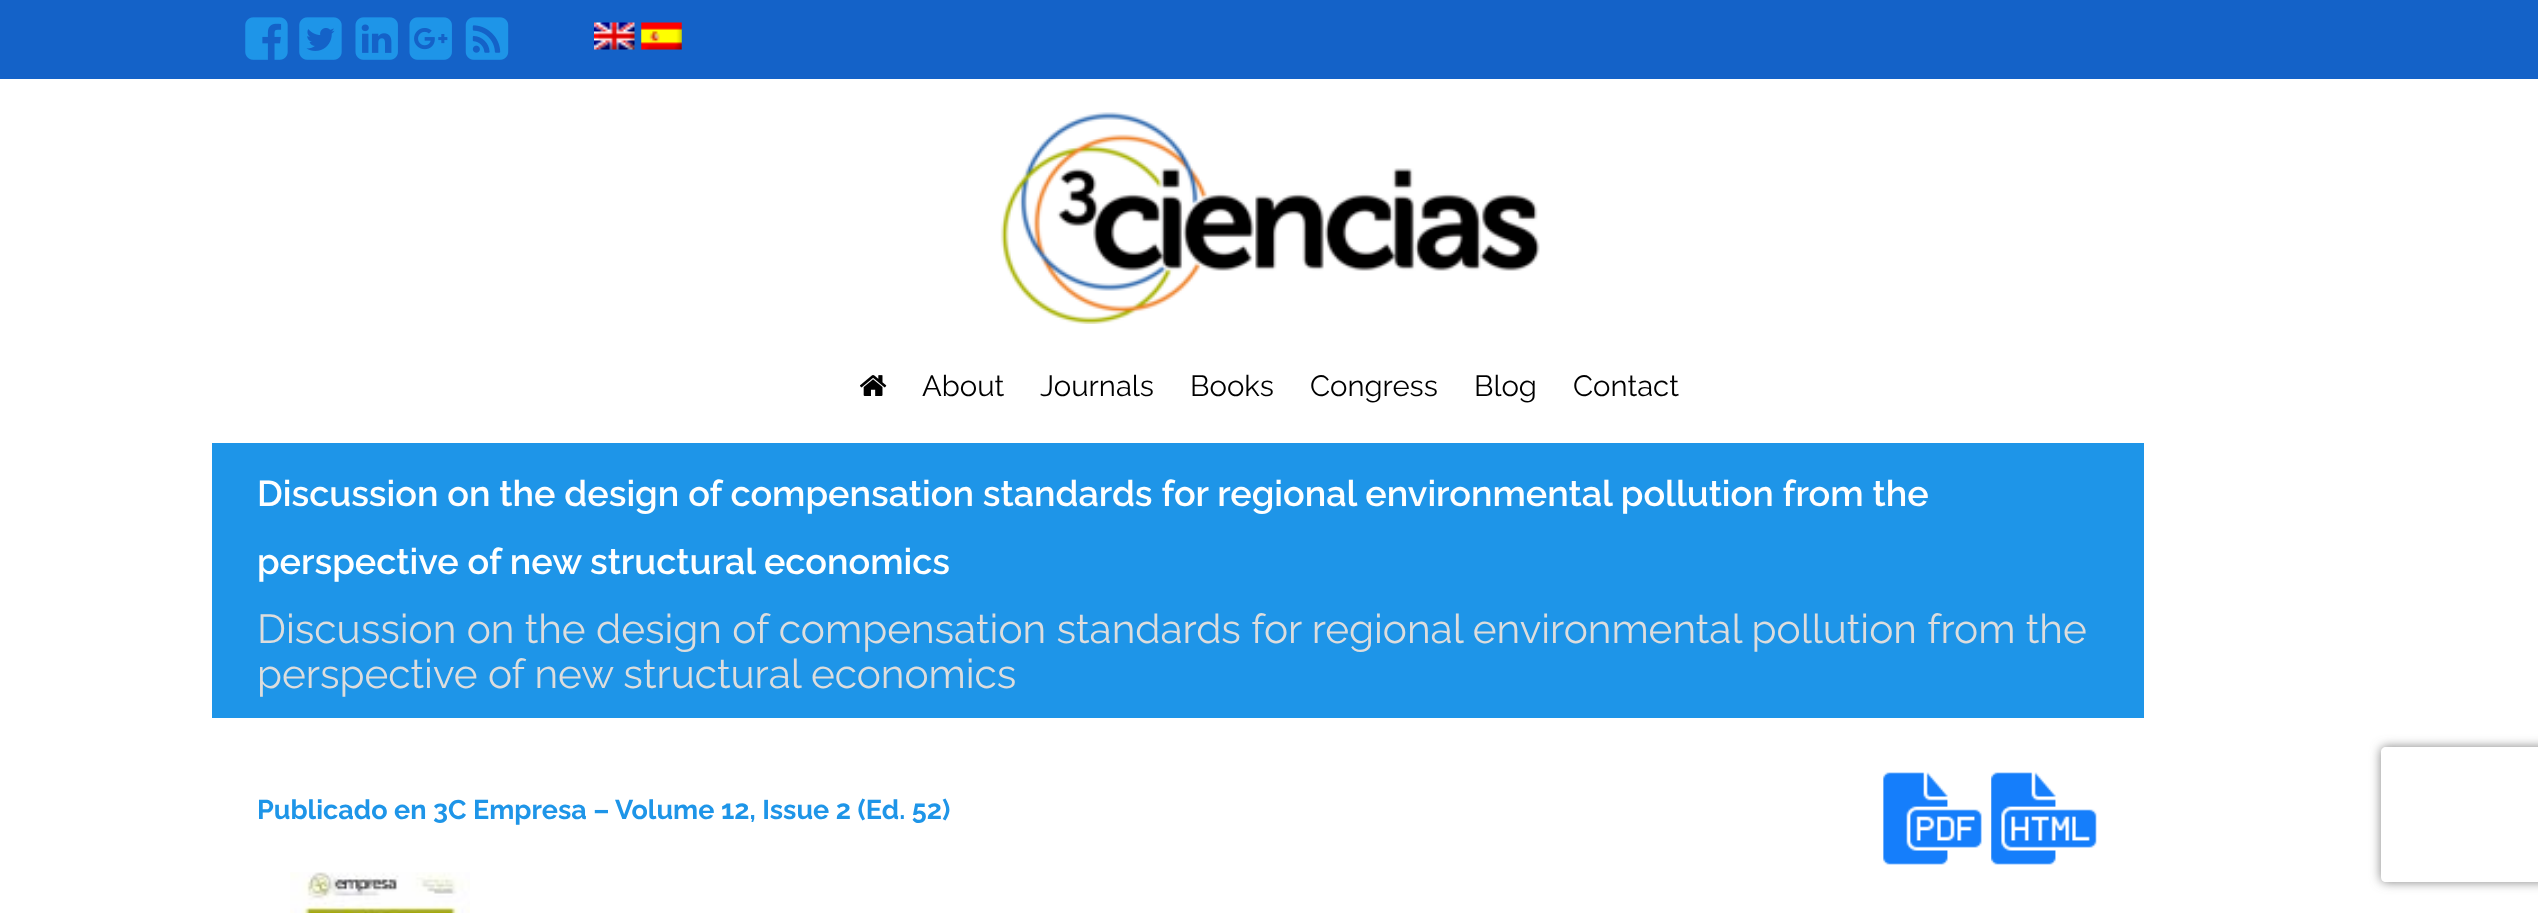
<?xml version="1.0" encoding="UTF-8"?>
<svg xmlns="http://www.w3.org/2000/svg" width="2538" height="913">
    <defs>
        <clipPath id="clip1"><path d="M 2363 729 H 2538 V 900 H 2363 Z M 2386 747 H 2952 C 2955 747 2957 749 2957 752 V 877 C 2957 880 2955 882 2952 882 H 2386 C 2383 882 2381 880 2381 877 V 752 C 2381 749 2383 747 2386 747 Z" clip-rule="evenodd"/></clipPath>
        <filter id="blur1" x="-50%" y="-200%" width="200%" height="500%"><feGaussianBlur stdDeviation="5.5"/></filter>
    </defs>
    <rect width="100%" height="100%" fill="#FFFFFF"/>
    <rect x="0" y="0" width="2538" height="79" fill="#1462C8"/>
    <image x="245" y="17" width="43" height="43" href="img_01.png"/>
    <image x="299" y="17" width="43" height="43" href="img_02.png"/>
    <image x="355" y="17" width="43" height="43" href="img_03.png"/>
    <image x="409" y="17" width="43" height="43" href="img_04.png"/>
    <image x="465" y="17" width="44" height="43" href="img_05.png"/>
    <image x="594" y="22" width="41" height="28" href="img_06.png"/>
    <image x="641" y="22" width="41" height="28" href="img_07.png"/>
    <image x="1000" y="112" width="540" height="212" href="img_08.png"/>
    <image x="860" y="375" width="27" height="21" href="img_09.png"/>
    <text x="922" y="396" font-family="Raleway" font-size="29.25" fill="#000000">About</text>
    <text x="1040" y="396" font-family="Raleway" font-size="29.25" fill="#000000">Journals</text>
    <text x="1190" y="396" font-family="Raleway" font-size="29.25" fill="#000000">Books</text>
    <text x="1310" y="396" font-family="Raleway" font-size="29.25" fill="#000000">Congress</text>
    <text x="1474" y="396" font-family="Raleway" font-size="29.25" fill="#000000">Blog</text>
    <text x="1573" y="396" font-family="Raleway" font-size="29.25" fill="#000000">Contact</text>
    <rect x="212" y="443" width="1932" height="275" fill="#1E95E8"/>
    <text font-family="Raleway" font-size="36" font-weight="600" fill="#FFFFFF">
        <tspan x="257" y="506">Discussion on the design of compensation standards for regional environmental pollution from the</tspan>
        <tspan x="257" y="574">perspective of new structural economics</tspan>
    </text>
    <text font-family="Raleway" font-size="40.5" fill="#DDDDDD">
        <tspan x="257" y="643">Discussion on the design of compensation standards for regional environmental pollution from the</tspan>
        <tspan x="257" y="688">perspective of new structural economics</tspan>
    </text>
    <text x="257" y="819" font-family="Raleway" font-size="27" font-weight="700" fill="#1E95E8">Publicado en 3C Empresa – Volume 12, Issue 2 (Ed. 52)</text>
    <image x="1883" y="772" width="99" height="93" href="img_10.png"/>
    <image x="1991" y="772" width="106" height="93" href="img_11.png"/>
    <image x="290" y="872" width="180" height="41" href="img_12.png"/>
    <g clip-path="url(#clip1)">
        <rect x="2381" y="747" width="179" height="135" rx="5" fill="#808080" filter="url(#blur1)"/>
    </g>
</svg>
